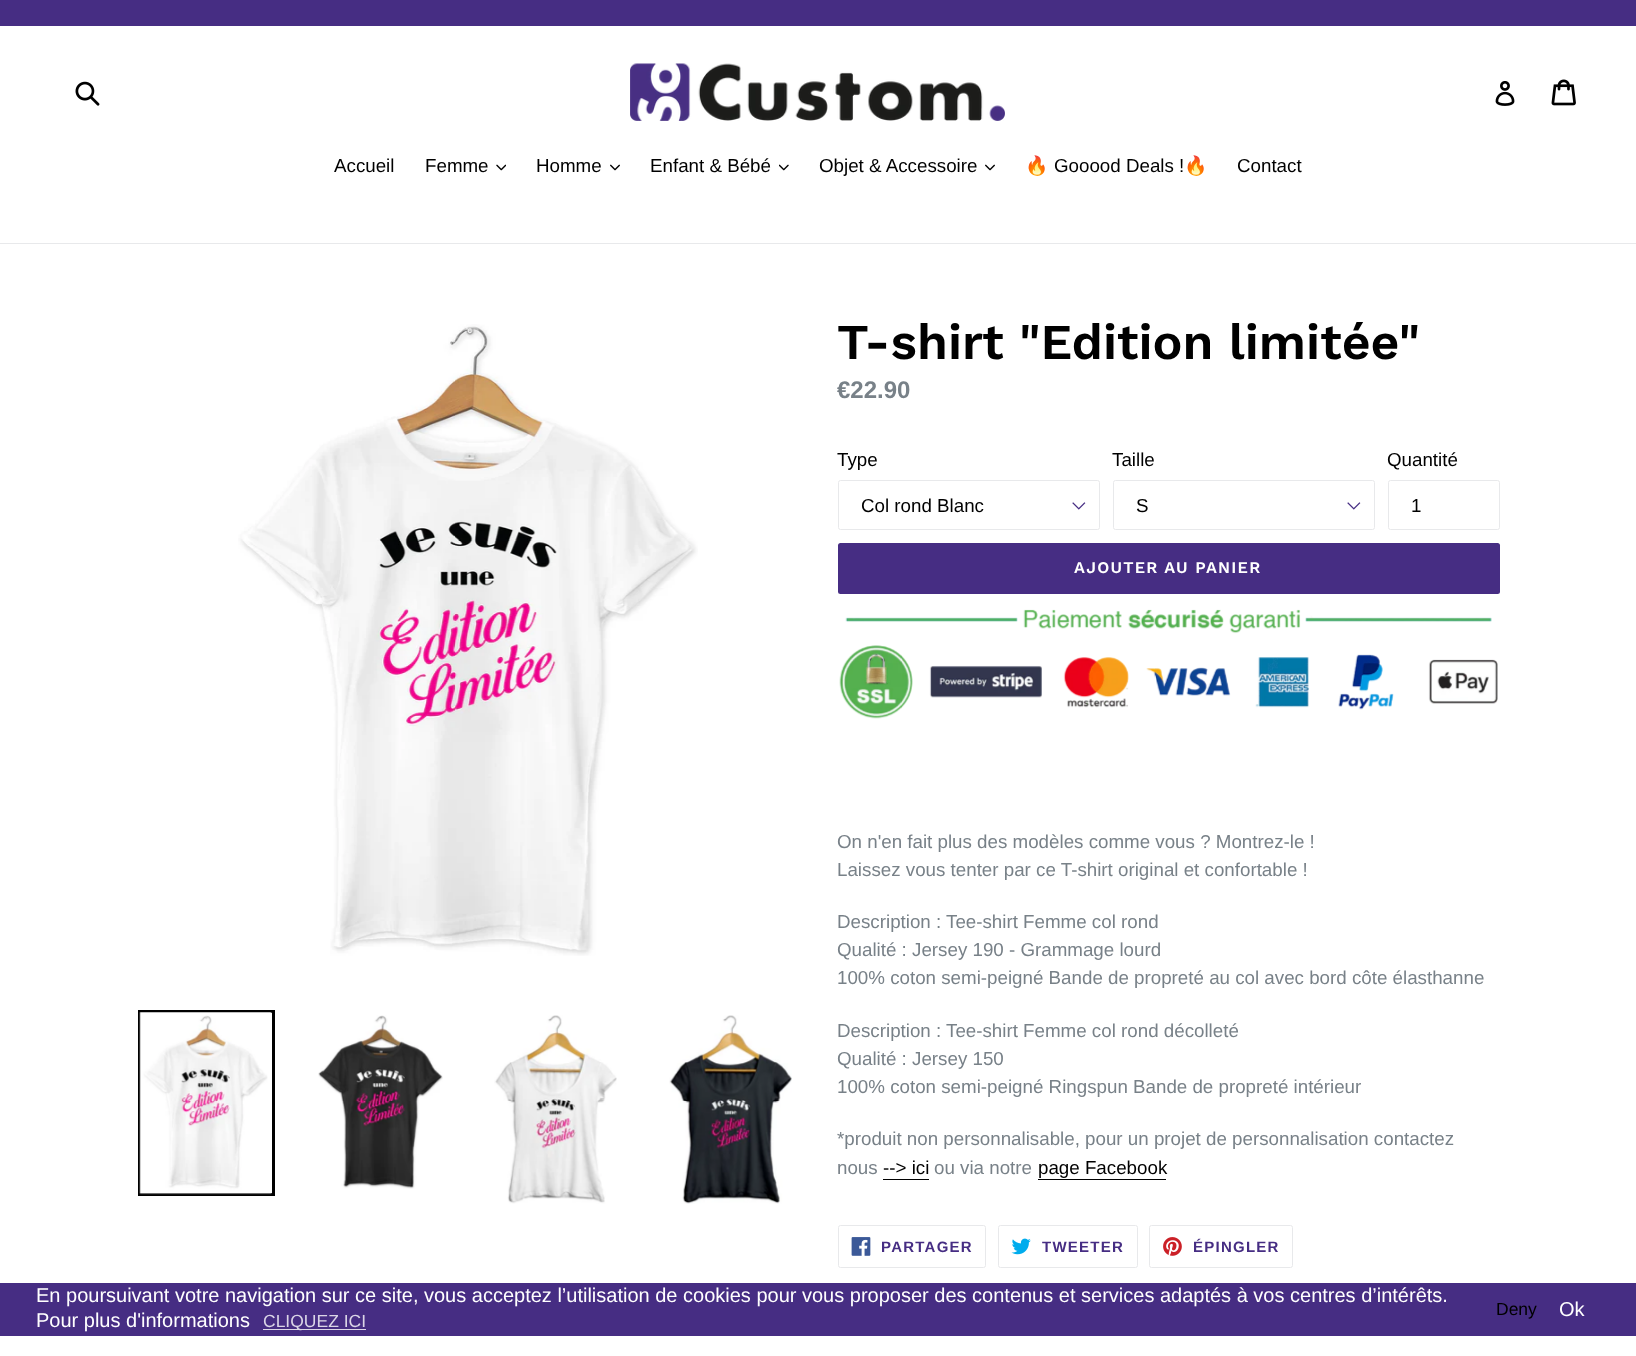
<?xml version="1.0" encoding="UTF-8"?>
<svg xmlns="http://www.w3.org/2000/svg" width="1636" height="1356">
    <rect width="100%" height="100%" fill="#FFFFFF"/>
    <rect x="0" y="0" width="1636" height="26" fill="#462D83"/>
    <image x="75" y="81" width="25" height="25" href="img_01.png"/>
    <image x="630" y="63" width="375" height="58" href="img_02.png"/>
    <image x="1495" y="81" width="20" height="25" href="img_03.png"/>
    <image x="1551" y="79" width="25" height="27" href="img_04.png"/>
    <rect x="0" y="243" width="1636" height="1" fill="#E8E9EB"/>
    <text x="334" y="172" font-family="Liberation Sans" font-size="18.75" fill="#000000">Accueil</text>
    <text x="425" y="172" font-family="Liberation Sans" font-size="18.75" fill="#000000">Femme</text>
    <image x="496" y="164" width="10" height="7" href="img_05.png"/>
    <text x="536" y="172" font-family="Liberation Sans" font-size="18.75" fill="#000000">Homme</text>
    <image x="610" y="164" width="10" height="7" href="img_06.png"/>
    <text x="650" y="172" font-family="Liberation Sans" font-size="18.75" fill="#000000">Enfant &amp; Bébé</text>
    <image x="779" y="164" width="10" height="7" href="img_07.png"/>
    <text x="819" y="172" font-family="Liberation Sans" font-size="18.75" fill="#000000">Objet &amp; Accessoire</text>
    <image x="985" y="164" width="10" height="7" href="img_06.png"/>
    <text x="1025" y="172" font-family="Noto Color Emoji" font-size="18.75" fill="#000000">🔥</text>
    <text x="1054" y="172" font-family="Liberation Sans" font-size="18.75" fill="#000000">Gooood Deals !</text>
    <text x="1184" y="172" font-family="Noto Color Emoji" font-size="18.75" fill="#000000">🔥</text>
    <text x="1237" y="172" font-family="Liberation Sans" font-size="18.75" fill="#000000">Contact</text>
    <image x="238" y="324" width="460" height="632" href="img_08.png"/>
    <rect x="139.5" y="1011.5" width="134" height="183" fill="none" stroke="#000000" stroke-width="3"/>
    <image x="139" y="1012" width="133" height="183" href="img_09.png"/>
    <image x="318" y="1015" width="125" height="174" href="img_10.png"/>
    <image x="494" y="1015" width="123" height="189" href="img_11.png"/>
    <image x="669" y="1015" width="123" height="189" href="img_12.png"/>
    <text x="837" y="359" font-family="Work Sans" font-size="50" font-weight="600" fill="#000000">T-shirt "Edition limitée"</text>
    <text x="837" y="398" font-family="Liberation Sans" font-size="24" font-weight="700" fill="#788188">€22.90</text>
    <text x="837" y="466" font-family="Liberation Sans" font-size="18.75" fill="#000000">Type</text>
    <image x="1072" y="502" width="14" height="8" href="img_13.png"/>
    <rect x="838.5" y="480.5" width="261" height="49" rx="2" fill="none" stroke="#E8E9EB"/>
    <text x="861" y="512" font-family="Liberation Sans" font-size="18.75" fill="#000000">Col rond Blanc</text>
    <text x="1112" y="466" font-family="Liberation Sans" font-size="18.75" fill="#000000">Taille</text>
    <image x="1347" y="502" width="14" height="8" href="img_13.png"/>
    <rect x="1113.5" y="480.5" width="261" height="49" rx="2" fill="none" stroke="#E8E9EB"/>
    <text x="1136" y="512" font-family="Liberation Sans" font-size="18.75" fill="#000000">S</text>
    <text x="1387" y="466" font-family="Liberation Sans" font-size="18.75" fill="#000000">Quantité</text>
    <rect x="1388.5" y="480.5" width="111" height="49" rx="2" fill="none" stroke="#E8E9EB"/>
    <text x="1411" y="512" font-family="Liberation Sans" font-size="18.75" fill="#000000">1</text>
    <rect x="838" y="543" width="662" height="51" rx="2.5" fill="#462D83"/>
    <text x="1074" y="573" font-family="Work Sans" font-size="16.25" font-weight="600" letter-spacing="1.25" fill="#FFFFFF">AJOUTER AU PANIER</text>
    <image x="839" y="609" width="659" height="110" href="img_14.png"/>
    <text font-family="Liberation Sans" font-size="18.75" fill="#788188">
        <tspan x="837" y="848">On n'en fait plus des modèles comme vous ? Montrez-le !</tspan>
        <tspan x="837" y="876">Laissez vous tenter par ce T-shirt original et confortable !</tspan>
    </text>
    <text x="837" y="928" font-family="Liberation Sans" font-size="18.75" fill="#788188">Description :</text>
    <text x="946" y="928" font-family="Liberation Sans" font-size="18.75" fill="#788188">Tee-shirt Femme col rond</text>
    <text font-family="Liberation Sans" font-size="18.75" fill="#788188">
        <tspan x="837" y="956">Qualité : Jersey 190 - Grammage lourd</tspan>
        <tspan x="837" y="984">100% coton semi-peigné Bande de propreté au col avec bord côte élasthanne</tspan>
    </text>
    <text x="837" y="1037" font-family="Liberation Sans" font-size="18.75" fill="#788188">Description :</text>
    <text x="946" y="1037" font-family="Liberation Sans" font-size="18.75" fill="#788188">Tee-shirt Femme col rond décolleté</text>
    <text font-family="Liberation Sans" font-size="18.75" fill="#788188">
        <tspan x="837" y="1065">Qualité : Jersey 150</tspan>
        <tspan x="837" y="1093">100% coton semi-peigné Ringspun Bande de propreté intérieur</tspan>
    </text>
    <text font-family="Liberation Sans" font-size="18.75" fill="#788188">
        <tspan x="837" y="1145">*produit non personnalisable, pour un projet de personnalisation contactez</tspan>
        <tspan x="837" y="1174">nous</tspan>
    </text>
    <text x="883" y="1174" font-family="Liberation Sans" font-size="18.75" fill="#000000">--&gt; ici</text>
    <rect x="883" y="1179" width="46" height="1" fill="#000000"/>
    <text x="934" y="1174" font-family="Liberation Sans" font-size="18.75" fill="#788188">ou via notre</text>
    <text x="1038" y="1174" font-family="Liberation Sans" font-size="18.75" fill="#000000">page Facebook</text>
    <rect x="1038" y="1179" width="128" height="1" fill="#000000"/>
    <rect x="838.5" y="1225.5" width="147" height="42" rx="2" fill="none" stroke="#E8E9EB"/>
    <image x="851" y="1237" width="20" height="19" href="img_15.png"/>
    <text x="881" y="1252" font-family="Liberation Sans" font-size="15" font-weight="700" letter-spacing="1.25" fill="#462D83">PARTAGER</text>
    <rect x="998.5" y="1225.5" width="139" height="42" rx="2" fill="none" stroke="#E8E9EB"/>
    <image x="1011" y="1238" width="20" height="17" href="img_16.png"/>
    <text x="1042" y="1252" font-family="Liberation Sans" font-size="15" font-weight="700" letter-spacing="1.25" fill="#462D83">TWEETER</text>
    <rect x="1149.5" y="1225.5" width="143" height="42" rx="2" fill="none" stroke="#E8E9EB"/>
    <image x="1163" y="1237" width="19" height="19" href="img_17.png"/>
    <text x="1193" y="1252" font-family="Liberation Sans" font-size="15" font-weight="700" letter-spacing="1.25" fill="#462D83">ÉPINGLER</text>
    <rect x="0" y="1283" width="1636" height="53" fill="#462D83"/>
    <text font-family="Liberation Sans" font-size="20" fill="#FFFFFF">
        <tspan x="36" y="1302">En poursuivant votre navigation sur ce site, vous acceptez l’utilisation de cookies pour vous proposer des contenus et services adaptés à vos centres d’intérêts.</tspan>
        <tspan x="36" y="1327">Pour plus d'informations</tspan>
    </text>
    <rect x="263" y="1329" width="103" height="1" fill="#DAD5E6"/>
    <text x="263" y="1327" font-family="Liberation Sans" font-size="17.5" fill="#DAD5E6">CLIQUEZ ICI</text>
    <text x="1496" y="1315" font-family="Liberation Sans" font-size="17.5" fill="#000000">Deny</text>
    <text x="1559" y="1316" font-family="Liberation Sans" font-size="20" fill="#FFFFFF">Ok</text>
</svg>
